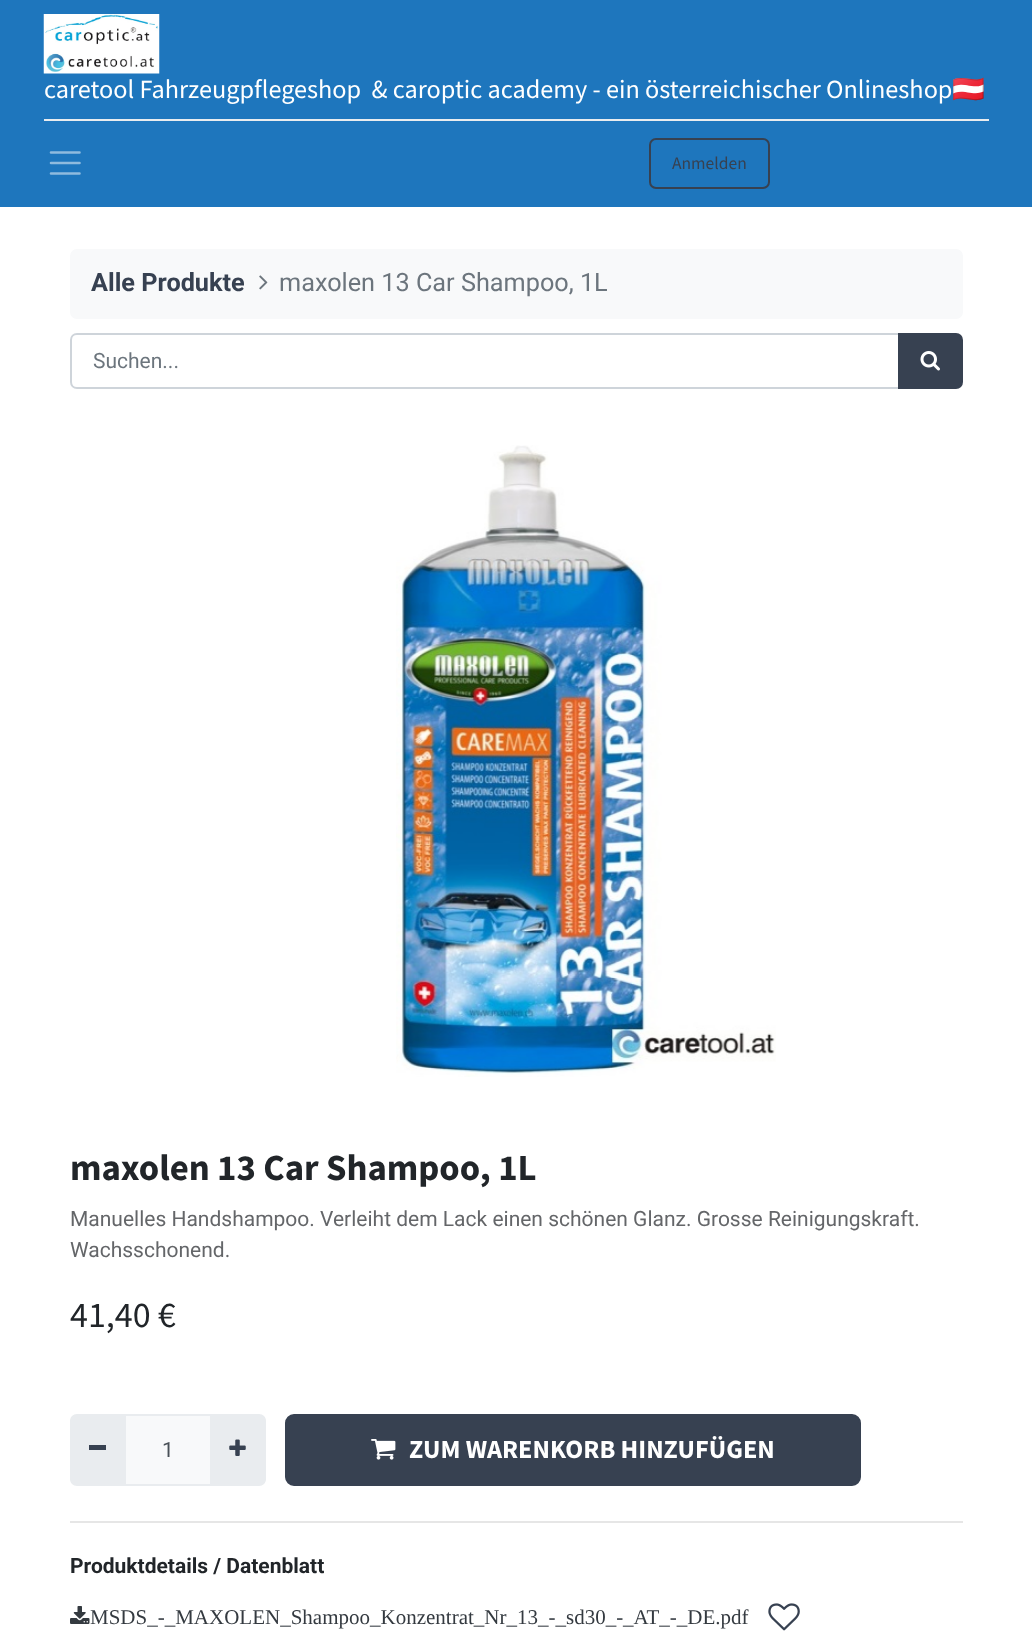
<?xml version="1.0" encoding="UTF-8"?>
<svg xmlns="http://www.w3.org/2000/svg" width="1032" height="1641">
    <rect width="100%" height="100%" fill="#FFFFFF"/>
    <rect x="0" y="0" width="1032" height="207" fill="#1E76BD"/>
    <image x="43" y="14" width="117" height="60" href="img_01.png"/>
    <text x="44" y="98" font-family="Source Sans Pro" font-size="26.25" fill="#FFFFFF" xml:space="preserve">caretool Fahrzeugpflegeshop  &amp; caroptic academy - ein österreichischer Onlineshop</text>
    <text x="952" y="98" font-family="Noto Color Emoji" font-size="26.25" fill="#FFFFFF">🇦🇹</text>
    <rect x="44" y="119" width="945" height="2" fill="#E9ECEF"/>
    <path d="M 51 152.5 H 79.5 M 51 163 H 79.5 M 51 173.5 H 79.5" fill="none" stroke="#8FBBDE" stroke-width="2.6" stroke-linecap="round"/>
    <rect x="650" y="139" width="119" height="49" rx="6" fill="none" stroke="#374151" stroke-width="2"/>
    <text x="672" y="169" font-family="Source Sans Pro" font-size="17.5" fill="#374151">Anmelden</text>
    <rect x="70" y="249" width="893" height="70" rx="7" fill="#F8F9FA"/>
    <text x="91" y="291" font-family="Roboto" font-size="25.25" font-weight="700" fill="#374151">Alle Produkte</text>
    <image x="259" y="275" width="9" height="15" href="img_02.png"/>
    <text x="279" y="291" font-family="Roboto" font-size="25.25" fill="#6C757D">maxolen 13 Car Shampoo, 1L</text>
    <path d="M 77 334 H 899 V 388 H 77 C 73.5 388 71 385.5 71 382 V 340 C 71 336.5 73.5 334 77 334 Z" fill="none" stroke="#CED4DA" stroke-width="2"/>
    <text x="93" y="368" font-family="Roboto" font-size="21" fill="#6C757D">Suchen...</text>
    <path d="M 899 334 H 956 C 959.5 334 962 336.5 962 340 V 382 C 962 385.5 959.5 388 956 388 H 899 Z" fill="#374151" stroke="#374151" stroke-width="2"/>
    <image x="920" y="351" width="20" height="20" href="img_03.png"/>
    <image x="396" y="445" width="380" height="632" href="img_04.png"/>
    <text x="70" y="1180" font-family="Source Sans Pro" font-size="36.75" font-weight="700" fill="#212529">maxolen 13 Car Shampoo, 1L</text>
    <text font-family="Roboto" font-size="21" fill="#646669">
        <tspan x="70" y="1226">Manuelles Handshampoo. Verleiht dem Lack einen schönen Glanz. Grosse Reinigungskraft.</tspan>
        <tspan x="70" y="1257">Wachsschonend.</tspan>
    </text>
    <text x="70" y="1327" font-family="Source Sans Pro" font-size="36" fill="#212529">41,40 €</text>
    <rect x="286" y="1415" width="574" height="70" rx="8" fill="#374151" stroke="#374151" stroke-width="2"/>
    <image x="371" y="1439" width="25" height="21" href="img_05.png"/>
    <text x="409" y="1458" font-family="Source Sans Pro" font-size="26.25" font-weight="700" fill="#FFFFFF">ZUM WARENKORB HINZUFÜGEN</text>
    <rect x="70" y="1521" width="893" height="2" fill="#E6E6E6"/>
    <text x="70" y="1573" font-family="Roboto" font-size="21" font-weight="700" fill="#212529">Produktdetails / Datenblatt</text>
    <image x="70" y="1606" width="20" height="18" href="img_06.png"/>
    <text x="90" y="1624" font-family="Liberation Serif" font-size="21" fill="#343A40">MSDS_-_MAXOLEN_Shampoo_Konzentrat_Nr_13_-_sd30_-_AT_-_DE.pdf</text>
    <image x="768" y="1603" width="32" height="28" href="img_07.png"/>
    <rect x="125" y="1415" width="86" height="70" fill="#F8F9FA" stroke="#E9ECEF" stroke-width="2"/>
    <path d="M 77 1414 H 126 V 1486 H 77 C 73 1486 70 1483 70 1479 V 1421 C 70 1417 73 1414 77 1414 Z" fill="#E9ECEF"/>
    <rect x="89" y="1445" width="17" height="5" fill="#374151"/>
    <text x="162" y="1457" font-family="Roboto" font-size="21" fill="#495057">1</text>
    <path d="M 210 1414 H 259 C 263 1414 266 1417 266 1421 V 1479 C 266 1483 263 1486 259 1486 H 210 Z" fill="#E9ECEF"/>
    <image x="229" y="1439" width="17" height="17" href="img_08.png"/>
</svg>
